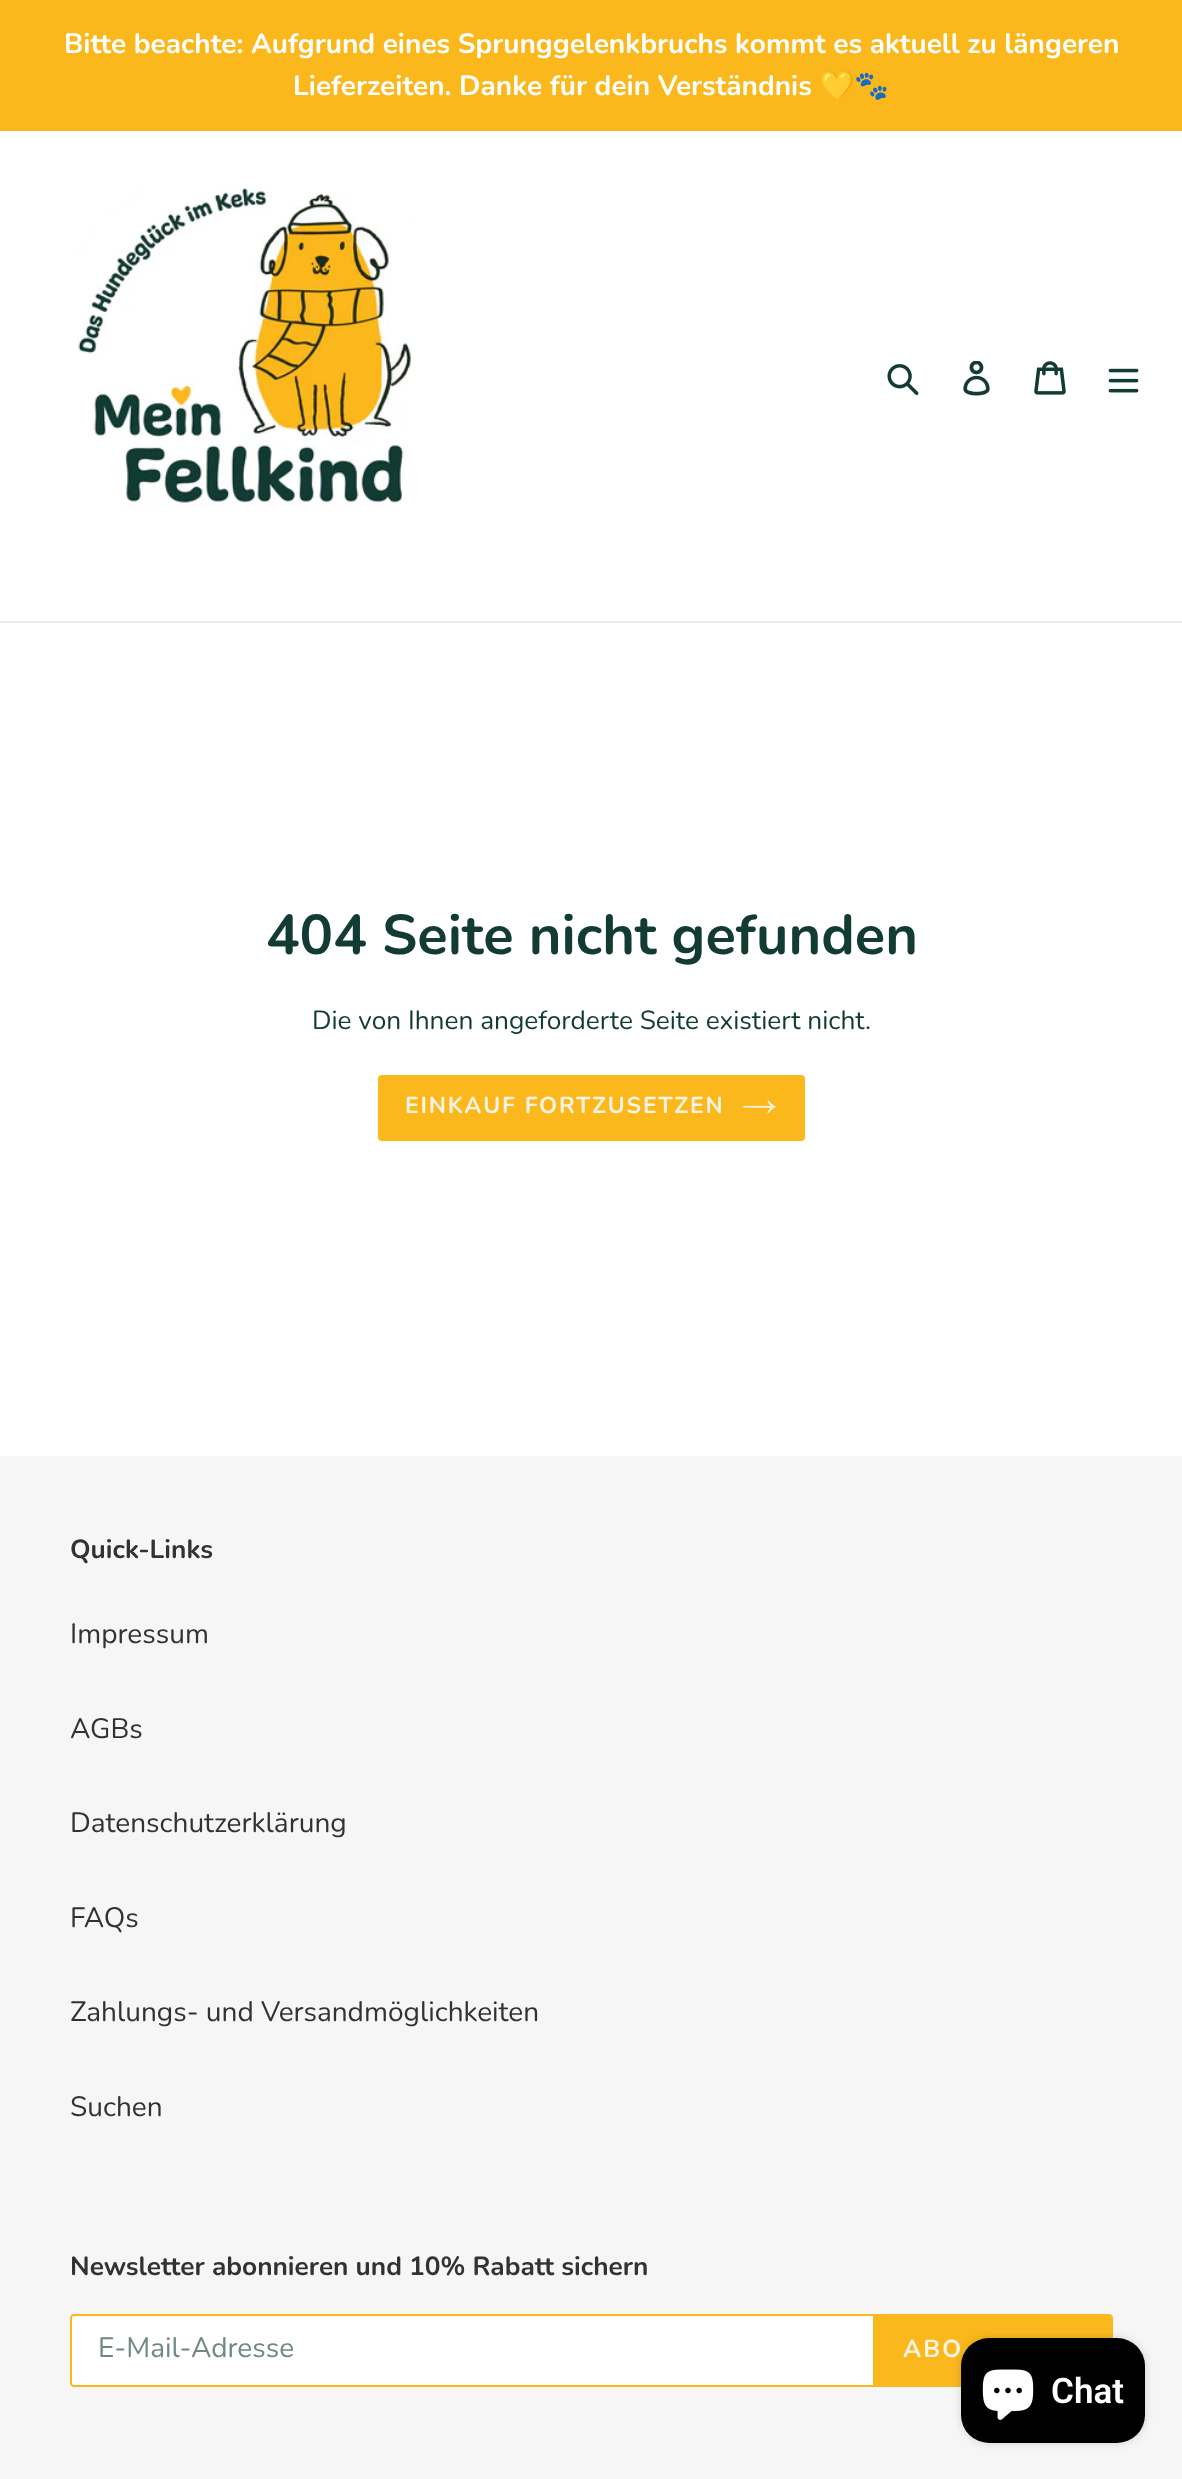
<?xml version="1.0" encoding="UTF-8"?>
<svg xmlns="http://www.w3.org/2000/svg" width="1182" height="2479">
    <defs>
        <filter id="blur1" x="-50%" y="-200%" width="200%" height="500%"><feGaussianBlur stdDeviation="4.5"/></filter>
    </defs>
    <rect width="100%" height="100%" fill="#FFFFFF"/>
    <rect x="0" y="0" width="1182" height="131" fill="#FBB81D"/>
    <text x="64" y="53" font-family="Nunito" font-size="28" font-weight="700" fill="#FFFFFF">Bitte beachte: Aufgrund eines Sprunggelenkbruchs kommt es aktuell zu längeren</text>
    <text x="293" y="95" font-family="Nunito" font-size="28" font-weight="700" fill="#FFFFFF">Lieferzeiten. Danke für dein Verständnis</text>
    <text x="820" y="95" font-family="Noto Color Emoji" font-size="28" font-weight="700" fill="#FFFFFF">💛🐾</text>
    <rect x="0" y="621" width="1182" height="2" fill="#EBEBEB"/>
    <image x="77" y="187" width="336" height="320" href="img_01.png"/>
    <image x="887" y="364" width="32" height="31" href="img_02.png"/>
    <image x="963" y="361" width="27" height="35" href="img_03.png"/>
    <image x="1034" y="361" width="32" height="34" href="img_04.png"/>
    <image x="1108" y="368" width="31" height="25" href="img_05.png"/>
    <text x="266" y="954" font-family="Nunito" font-size="56" font-weight="700" fill="#123B34">404 Seite nicht gefunden</text>
    <text x="312" y="1029" font-family="Nunito" font-size="26.25" fill="#123B34">Die von Ihnen angeforderte Seite existiert nicht.</text>
    <rect x="378" y="1075" width="427" height="66" rx="4" fill="#FBB81D"/>
    <text x="405" y="1113" font-family="Nunito" font-size="23" font-weight="700" letter-spacing="1.8" fill="#FBF3E4">EINKAUF FORTZUSETZEN</text>
    <image x="743" y="1100" width="33" height="13" href="img_06.png"/>
    <rect x="0" y="1456" width="1182" height="1023" fill="#F6F6F6"/>
    <text x="70" y="1558" font-family="Nunito" font-size="26.25" font-weight="700" fill="#333232">Quick-Links</text>
    <text x="70" y="1643" font-family="Nunito" font-size="28" fill="#333232">Impressum</text>
    <text x="70" y="1738" font-family="Nunito" font-size="28" fill="#333232">AGBs</text>
    <text x="70" y="1832" font-family="Nunito" font-size="28" fill="#333232">Datenschutzerklärung</text>
    <text x="70" y="1927" font-family="Nunito" font-size="28" fill="#333232">FAQs</text>
    <text x="70" y="2021" font-family="Nunito" font-size="28" fill="#333232">Zahlungs- und Versandmöglichkeiten</text>
    <text x="70" y="2116" font-family="Nunito" font-size="28" fill="#333232">Suchen</text>
    <text x="70" y="2275" font-family="Nunito" font-size="26.25" font-weight="700" fill="#333232">Newsletter abonnieren und 10% Rabatt sichern</text>
    <path d="M 74 2315 H 874 V 2386 H 74 C 72.5 2386 71 2384.5 71 2383 V 2318 C 71 2316.5 72.5 2315 74 2315 Z" fill="#FFFFFF" stroke="#FBB81D" stroke-width="2"/>
    <text x="98" y="2357" font-family="Nunito" font-size="28" fill="#718985">E-Mail-Adresse</text>
    <path d="M 875 2314 H 1109 C 1111 2314 1113 2316 1113 2318 V 2383 C 1113 2385 1111 2387 1109 2387 H 875 Z" fill="#FBB81D"/>
    <text x="903" y="2357" font-family="Nunito" font-size="24.5" font-weight="700" letter-spacing="2" fill="#FBF3E4">ABO</text>
    <rect x="961" y="2338" width="184" height="105" rx="28" fill="#000000" fill-opacity="0.15" filter="url(#blur1)"/>
    <rect x="961" y="2338" width="184" height="105" rx="28" fill="#000000"/>
    <image x="982" y="2369" width="52" height="51" href="img_07.png"/>
    <text x="1051" y="2403" font-family="Roboto" font-size="35" font-weight="600" fill="#FFFFFF">Chat</text>
</svg>
